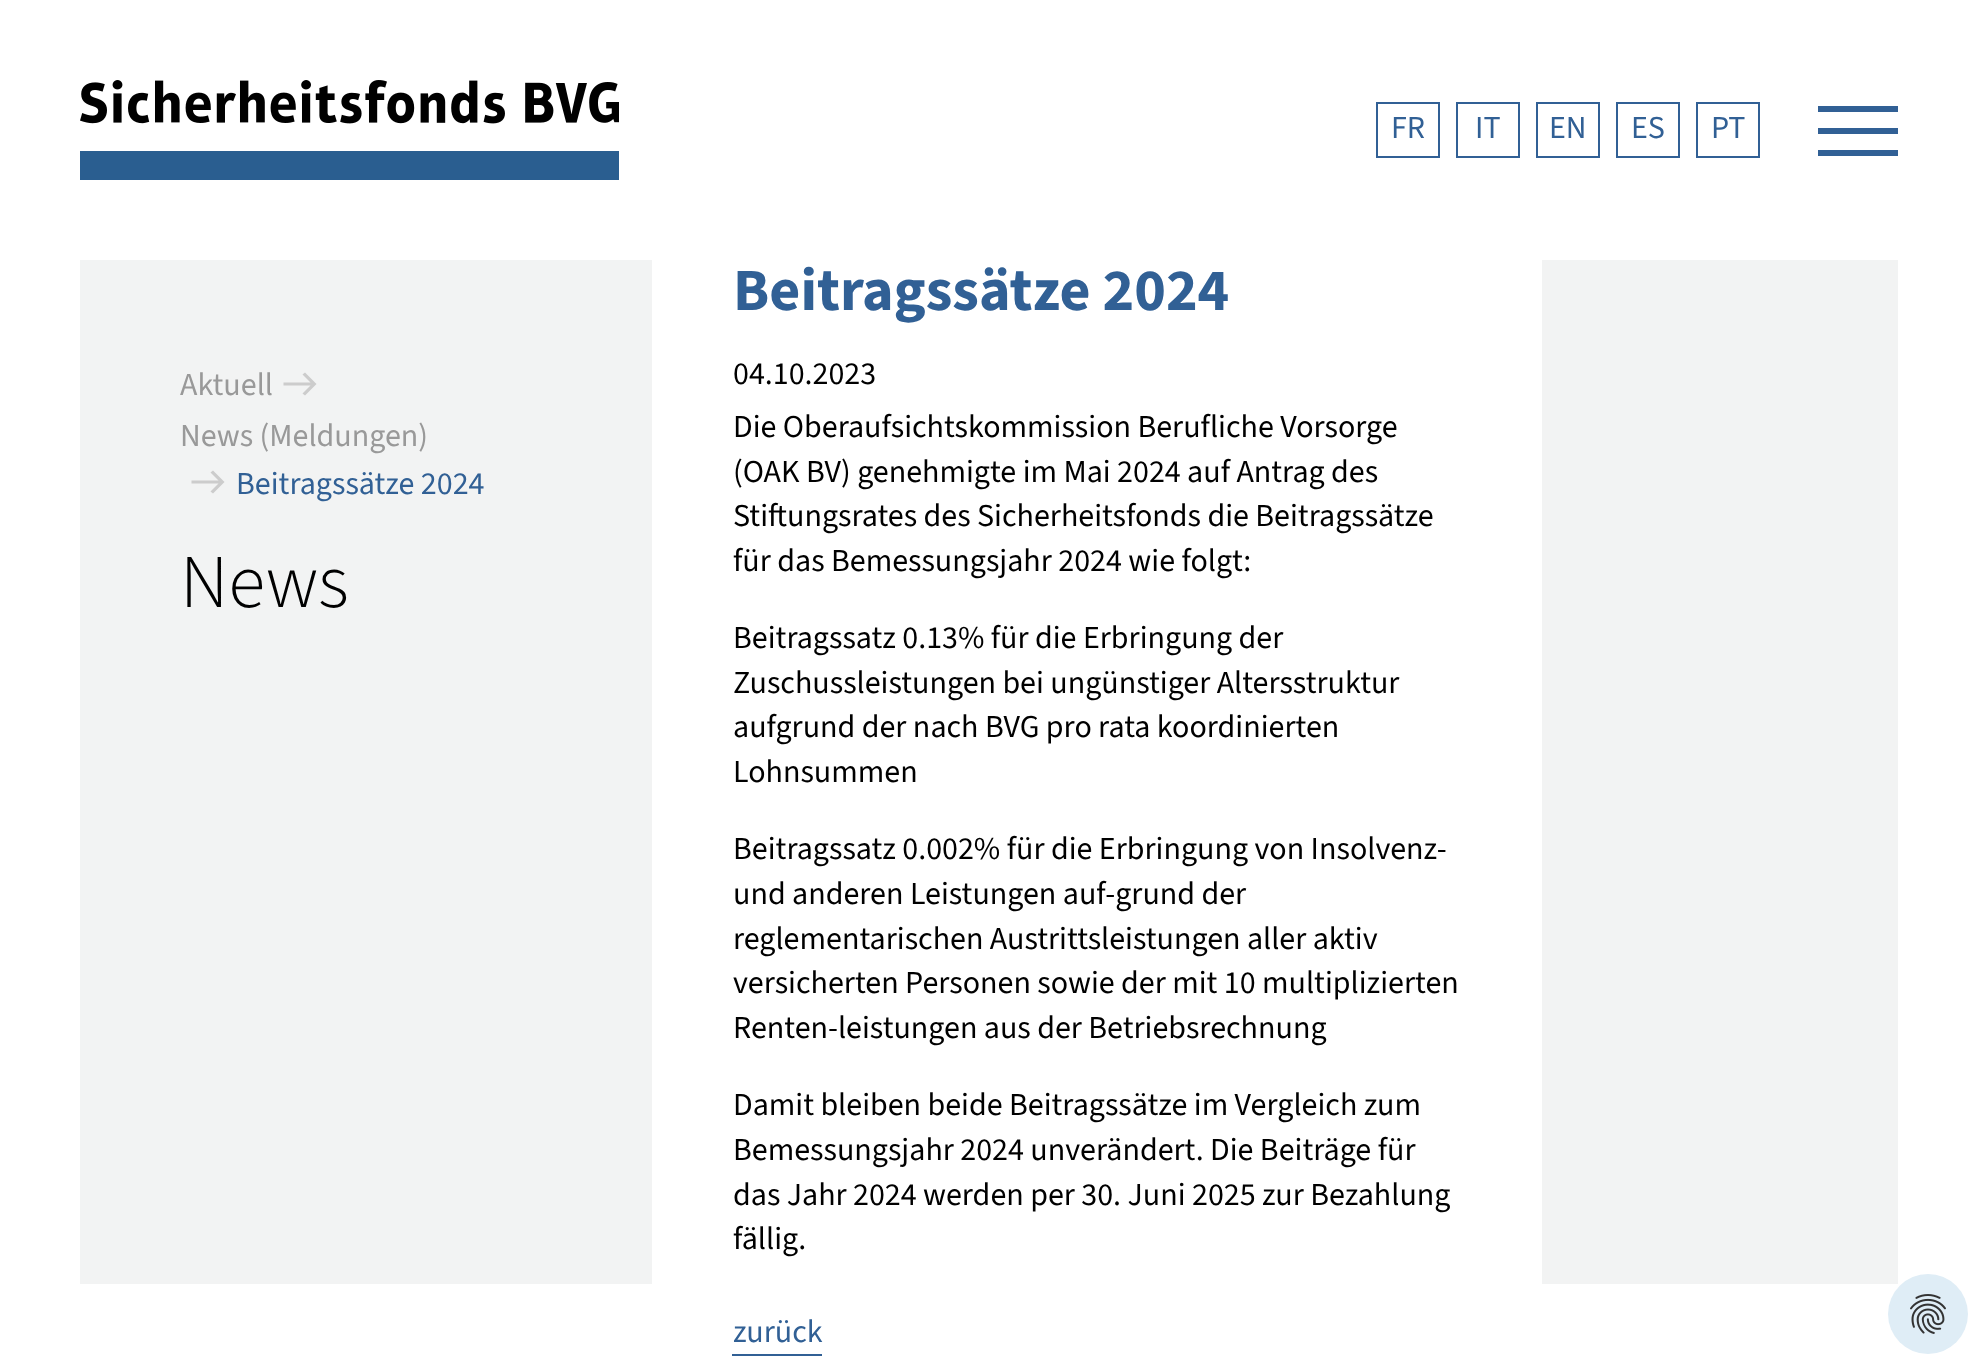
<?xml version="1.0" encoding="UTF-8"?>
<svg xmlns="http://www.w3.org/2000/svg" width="1978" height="1364">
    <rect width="100%" height="100%" fill="#FFFFFF"/>
    <image x="80" y="80" width="539" height="100" href="img_01.png"/>
    <rect x="1377" y="103" width="62" height="54" fill="none" stroke="#316095" stroke-width="2"/>
    <text x="1391" y="138" font-family="'Source Sans 3'" font-size="32" fill="#316095">FR</text>
    <rect x="1457" y="103" width="62" height="54" fill="none" stroke="#316095" stroke-width="2"/>
    <text x="1475" y="138" font-family="'Source Sans 3'" font-size="32" fill="#316095">IT</text>
    <rect x="1537" y="103" width="62" height="54" fill="none" stroke="#316095" stroke-width="2"/>
    <text x="1549" y="138" font-family="'Source Sans 3'" font-size="32" fill="#316095">EN</text>
    <rect x="1617" y="103" width="62" height="54" fill="none" stroke="#316095" stroke-width="2"/>
    <text x="1631" y="138" font-family="'Source Sans 3'" font-size="32" fill="#316095">ES</text>
    <rect x="1697" y="103" width="62" height="54" fill="none" stroke="#316095" stroke-width="2"/>
    <text x="1711" y="138" font-family="'Source Sans 3'" font-size="32" fill="#316095">PT</text>
    <rect x="1818" y="128" width="80" height="6" fill="#316095"/>
    <rect x="1818" y="106" width="80" height="6" fill="#316095"/>
    <rect x="1818" y="150" width="80" height="6" fill="#316095"/>
    <rect x="80" y="260" width="572" height="1024" fill="#F2F3F3"/>
    <text x="180" y="395" font-family="'Source Sans 3'" font-size="32" fill="#999999">Aktuell</text>
    <path d="M 305 372.5 L 302.5 374.5 L 310.5 382.5 H 283.5 V 385.5 H 310.5 L 302.5 393.5 L 305 395.5 L 316.5 384 Z" fill="#CCCCCC"/>
    <text x="180" y="446" font-family="'Source Sans 3'" font-size="32" fill="#999999">News (Meldungen)</text>
    <path d="M 213 470.5 L 210.5 472.5 L 218.5 480.5 H 191.5 V 483.5 H 218.5 L 210.5 491.5 L 213 493.5 L 224.5 482 Z" fill="#CCCCCC"/>
    <text x="236" y="494" font-family="'Source Sans 3'" font-size="32" fill="#316095">Beitragssätze 2024</text>
    <text x="180" y="607" font-family="'Source Sans 3'" font-size="76" font-weight="300" fill="#000000">News</text>
    <text x="733" y="310" font-family="'Source Sans 3'" font-size="60" font-weight="700" fill="#316095">Beitragssätze 2024</text>
    <text font-family="'Source Sans 3'" font-size="32" fill="#000000">
        <tspan x="733" y="384">04.10.2023</tspan>
        <tspan x="733" y="437">Die Oberaufsichtskommission Berufliche Vorsorge</tspan>
        <tspan x="733" y="482">(OAK BV) genehmigte im Mai 2024 auf Antrag des</tspan>
        <tspan x="733" y="526">Stiftungsrates des Sicherheitsfonds die Beitragssätze</tspan>
        <tspan x="733" y="571">für das Bemessungsjahr 2024 wie folgt:</tspan>
    </text>
    <text font-family="'Source Sans 3'" font-size="32" fill="#000000">
        <tspan x="733" y="648">Beitragssatz 0.13% für die Erbringung der</tspan>
        <tspan x="733" y="693">Zuschussleistungen bei ungünstiger Altersstruktur</tspan>
        <tspan x="733" y="737">aufgrund der nach BVG pro rata koordinierten</tspan>
        <tspan x="733" y="782">Lohnsummen</tspan>
    </text>
    <text font-family="'Source Sans 3'" font-size="32" fill="#000000">
        <tspan x="733" y="859">Beitragssatz 0.002% für die Erbringung von Insolvenz-</tspan>
        <tspan x="733" y="904">und anderen Leistungen auf-grund der</tspan>
        <tspan x="733" y="949">reglementarischen Austrittsleistungen aller aktiv</tspan>
        <tspan x="733" y="993">versicherten Personen sowie der mit 10 multiplizierten</tspan>
        <tspan x="733" y="1038">Renten-leistungen aus der Betriebsrechnung</tspan>
    </text>
    <text font-family="'Source Sans 3'" font-size="32" fill="#000000">
        <tspan x="733" y="1115">Damit bleiben beide Beitragssätze im Vergleich zum</tspan>
        <tspan x="733" y="1160">Bemessungsjahr 2024 unverändert. Die Beiträge für</tspan>
        <tspan x="733" y="1205">das Jahr 2024 werden per 30. Juni 2025 zur Bezahlung</tspan>
        <tspan x="733" y="1249">fällig.</tspan>
    </text>
    <text x="733" y="1342" font-family="'Source Sans 3'" font-size="32" fill="#316095">zurück</text>
    <rect x="732" y="1354" width="90" height="2" fill="#316095"/>
    <rect x="1542" y="260" width="356" height="1024" fill="#F2F3F3"/>
    <circle cx="1928" cy="1314" r="40" fill="#DFEDF6"/>
    <image x="1910" y="1294" width="36" height="40" href="img_02.png"/>
</svg>
